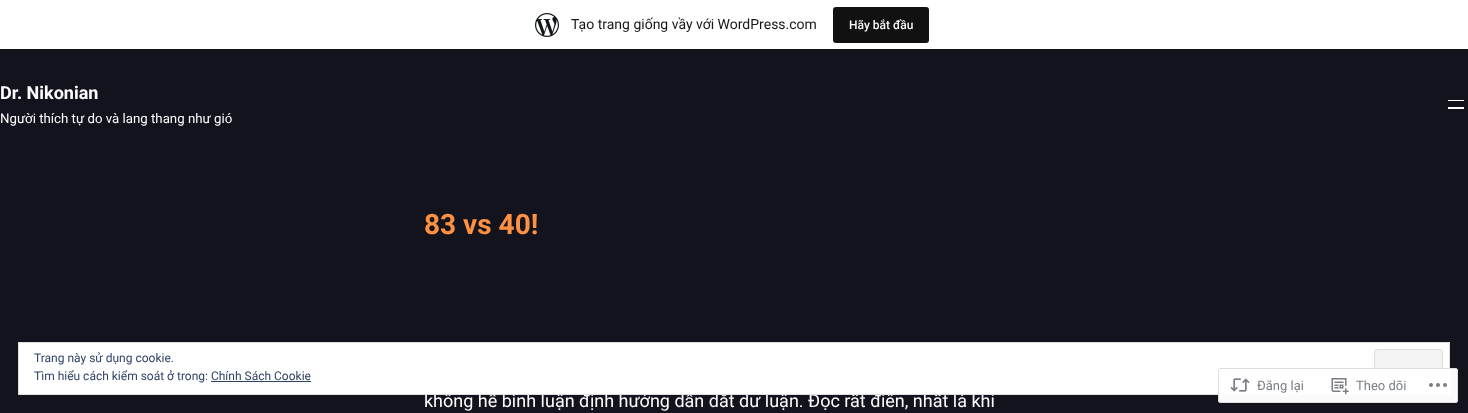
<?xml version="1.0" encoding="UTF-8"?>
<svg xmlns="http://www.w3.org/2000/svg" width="1468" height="413">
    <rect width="100%" height="100%" fill="#13131E"/>
    <rect x="0" y="0" width="1468" height="49" fill="#FFFFFF"/>
    <image x="535" y="13" width="24" height="24" href="img_01.png"/>
    <text x="571" y="29" font-family="Roboto" font-size="14" fill="#171717">Tạo trang giống vầy với WordPress.com</text>
    <rect x="833" y="7" width="96" height="36" rx="3" fill="#111111"/>
    <text x="849" y="29" font-family="Roboto" font-size="12" font-weight="500" fill="#F6F7F7">Hãy bắt đầu</text>
    <text x="0" y="99" font-family="Roboto" font-size="18" font-weight="700" fill="#FDFDFD">Dr. Nikonian</text>
    <text x="0" y="123" font-family="Roboto" font-size="13.25" fill="#FDFDFD">Người thích tự do và lang thang như gió</text>
    <rect x="1448" y="100" width="16" height="1" fill="#FDFDFD"/>
    <rect x="1448" y="107" width="16" height="2" fill="#FDFDFD"/>
    <text x="424" y="234" font-family="Roboto" font-size="28" font-weight="700" fill="#FE9042">83 vs 40!</text>
    <text x="424" y="407" font-family="Roboto" font-size="18" fill="#FDFDFD">không hề bình luận định hướng dẫn dắt dư luận. Đọc rất điên, nhất là khi</text>
    <rect x="18.5" y="342.5" width="1431" height="52" fill="#FFFFFF" stroke="#DEDEDE"/>
    <text x="34" y="362" font-family="Roboto" font-size="12" fill="#2E4467">Trang này sử dụng cookie.</text>
    <rect x="1374.5" y="349.5" width="68" height="38" rx="2.5" fill="#F3F3F3" stroke="#DEDEDE"/>
    <text x="34" y="380" font-family="Roboto" font-size="12" fill="#2E4467">Tìm hiểu cách kiểm soát ở trong: Chính Sách Cookie</text>
    <rect x="211" y="381" width="100" height="1" fill="#2E4467"/>
    <rect x="1218" y="368" width="240" height="35" rx="3" fill="#FFFFFF" fill-opacity="0.98"/>
    <rect x="1218.5" y="368.5" width="239" height="34" rx="2.5" fill="none" stroke="#DCDCDE" stroke-opacity="0.98"/>
    <image x="1230" y="378" width="20" height="14" href="img_02.png"/>
    <text x="1257" y="390" font-family="Roboto" font-size="13" fill="#7B7F85">Đăng lại</text>
    <image x="1331" y="378" width="18" height="17" href="img_03.png"/>
    <text x="1356" y="390" font-family="Roboto" font-size="13" fill="#7B7F85">Theo dõi</text>
    <image x="1429" y="383" width="18" height="4" href="img_04.png"/>
</svg>
